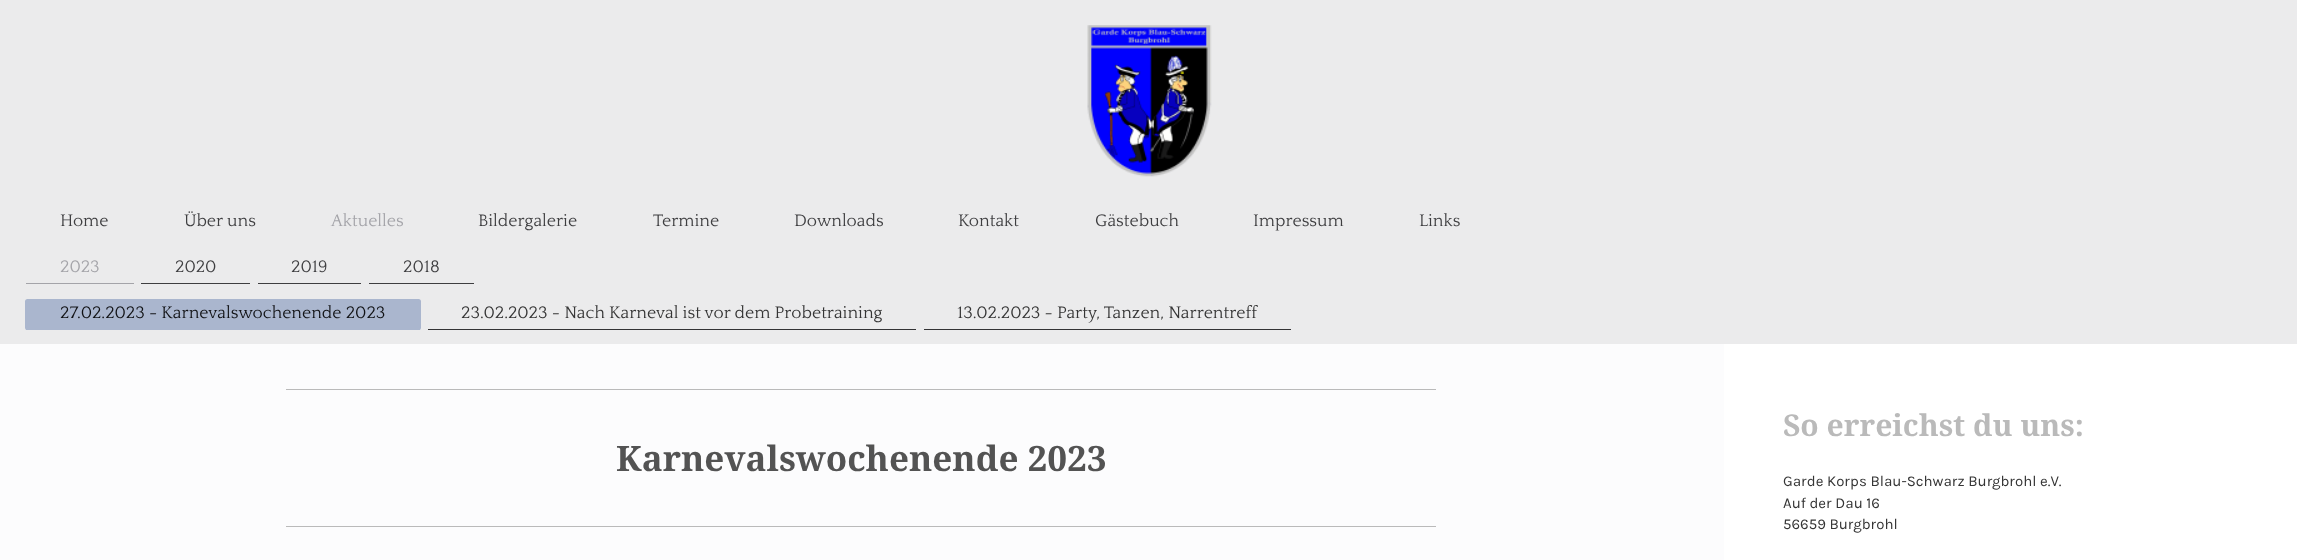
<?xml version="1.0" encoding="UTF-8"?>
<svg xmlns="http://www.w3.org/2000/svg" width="2297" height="560">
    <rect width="100%" height="100%" fill="#EBEBEC"/>
    <image x="1087" y="25" width="125" height="152" href="img_01.png"/>
    <text x="60" y="226" font-family="Quattrocento" font-size="17.5" fill="#3E3E40">Home</text>
    <text x="184" y="226" font-family="Quattrocento" font-size="17.5" fill="#3E3E40">Über uns</text>
    <text x="331" y="226" font-family="Quattrocento" font-size="17.5" fill="#A4A4A9">Aktuelles</text>
    <text x="478" y="226" font-family="Quattrocento" font-size="17.5" fill="#3E3E40">Bildergalerie</text>
    <text x="653" y="226" font-family="Quattrocento" font-size="17.5" fill="#3E3E40">Termine</text>
    <text x="794" y="226" font-family="Quattrocento" font-size="17.5" fill="#3E3E40">Downloads</text>
    <text x="958" y="226" font-family="Quattrocento" font-size="17.5" fill="#3E3E40">Kontakt</text>
    <text x="1095" y="226" font-family="Quattrocento" font-size="17.5" fill="#3E3E40">Gästebuch</text>
    <text x="1253" y="226" font-family="Quattrocento" font-size="17.5" fill="#3E3E40">Impressum</text>
    <text x="1419" y="226" font-family="Quattrocento" font-size="17.5" fill="#3E3E40">Links</text>
    <rect x="26" y="283" width="108" height="1" fill="#A4A4A9"/>
    <text x="60" y="272" font-family="Quattrocento" font-size="17.5" fill="#A4A4A9">2023</text>
    <rect x="141" y="283" width="109" height="1" fill="#3E3E40"/>
    <text x="175" y="272" font-family="Quattrocento" font-size="17.5" fill="#3E3E40">2020</text>
    <rect x="258" y="283" width="103" height="1" fill="#3E3E40"/>
    <text x="291" y="272" font-family="Quattrocento" font-size="17.5" fill="#3E3E40">2019</text>
    <rect x="369" y="283" width="105" height="1" fill="#3E3E40"/>
    <text x="403" y="272" font-family="Quattrocento" font-size="17.5" fill="#3E3E40">2018</text>
    <rect x="25" y="299" width="396" height="31" rx="2.5" fill="#AAB6CE"/>
    <rect x="26" y="329" width="394" height="1" fill="#AAB6CE"/>
    <text x="60" y="318" font-family="Quattrocento" font-size="17.5" fill="#111215">27.02.2023 - Karnevalswochenende 2023</text>
    <rect x="428" y="329" width="488" height="1" fill="#333335"/>
    <text x="461" y="318" font-family="Quattrocento" font-size="17.5" fill="#353535">23.02.2023 - Nach Karneval ist vor dem Probetraining</text>
    <rect x="924" y="329" width="367" height="1" fill="#333335"/>
    <text x="957" y="318" font-family="Quattrocento" font-size="17.5" fill="#353535">13.02.2023 - Party, Tanzen, Narrentreff</text>
    <rect x="0" y="344" width="1724" height="216" fill="#FCFCFD"/>
    <rect x="286" y="389" width="1150" height="1" fill="#BABABA"/>
    <text x="616" y="471" font-family="Noto Serif" font-size="35" font-weight="700" fill="#535353">Karnevalswochenende 2023</text>
    <rect x="286" y="526" width="1150" height="1" fill="#BABABA"/>
    <rect x="1724" y="344" width="573" height="216" fill="#FFFFFF"/>
    <text x="1783" y="436" font-family="Noto Serif" font-size="30" font-weight="700" fill="#BABABA">So erreichst du uns:</text>
    <text font-family="Karla" font-size="15" fill="#353535">
        <tspan x="1783" y="486">Garde Korps Blau-Schwarz Burgbrohl e.V.</tspan>
        <tspan x="1783" y="508">Auf der Dau 16</tspan>
        <tspan x="1783" y="529">56659 Burgbrohl</tspan>
    </text>
</svg>
